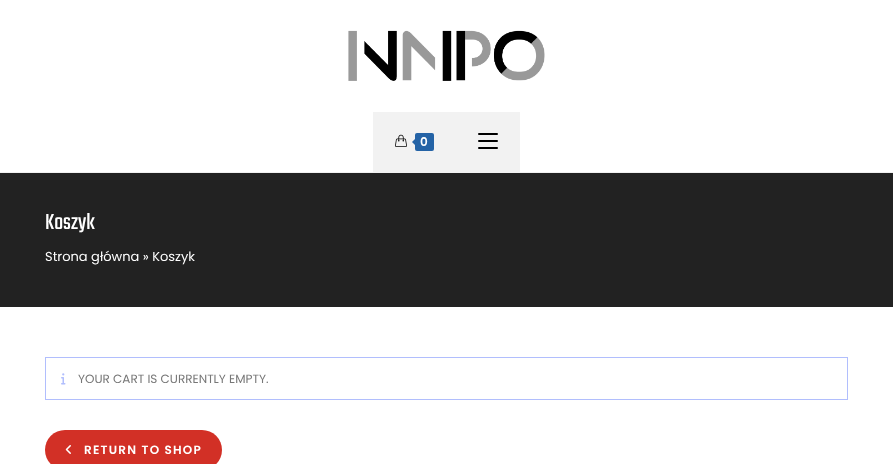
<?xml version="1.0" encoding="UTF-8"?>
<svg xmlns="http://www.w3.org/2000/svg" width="893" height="464">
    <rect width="100%" height="100%" fill="#FFFFFF"/>
    <rect x="0" y="172" width="893" height="1" fill="#F1F1F1"/>
    <image x="348" y="30" width="197" height="51" href="img_01.png"/>
    <rect x="373" y="112" width="147" height="60" fill="#F2F2F2"/>
    <image x="395" y="134" width="12" height="13" href="img_02.png"/>
    <rect x="415" y="133" width="19" height="18" rx="2" fill="#2463A6"/>
    <path d="M 417 137 V 147 L 412 142 Z" fill="#2463A6"/>
    <text x="420" y="146" font-family="Poppins" font-size="12" font-weight="600" letter-spacing="1" fill="#FFFFFF">0</text>
    <rect x="478" y="147" width="20" height="2" rx="1" fill="#000000"/>
    <rect x="478" y="133" width="20" height="2" rx="1" fill="#000000"/>
    <rect x="478" y="140" width="20" height="2" rx="1" fill="#000000"/>
    <rect x="0" y="173" width="893" height="134" fill="#222222"/>
    <text x="45" y="229" font-family="Teko" font-size="24" fill="#FFFFFF">Koszyk</text>
    <text x="45" y="261" font-family="Poppins" font-size="13" fill="#FFFFFF">Strona główna » Koszyk</text>
    <rect x="45.5" y="357.5" width="802" height="42" fill="none" stroke="#B1BEFD"/>
    <image x="61" y="373" width="5" height="12" href="img_03.png"/>
    <text x="78" y="383" font-family="Poppins" font-size="12" fill="#777777">YOUR CART IS CURRENTLY EMPTY.</text>
    <rect x="45" y="430" width="177" height="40" rx="20" fill="#D23026"/>
    <image x="65" y="445" width="6" height="9" href="img_04.png"/>
    <text x="84" y="454" font-family="Poppins" font-size="12" font-weight="600" letter-spacing="1.25" fill="#FFFFFF">RETURN TO SHOP</text>
</svg>
